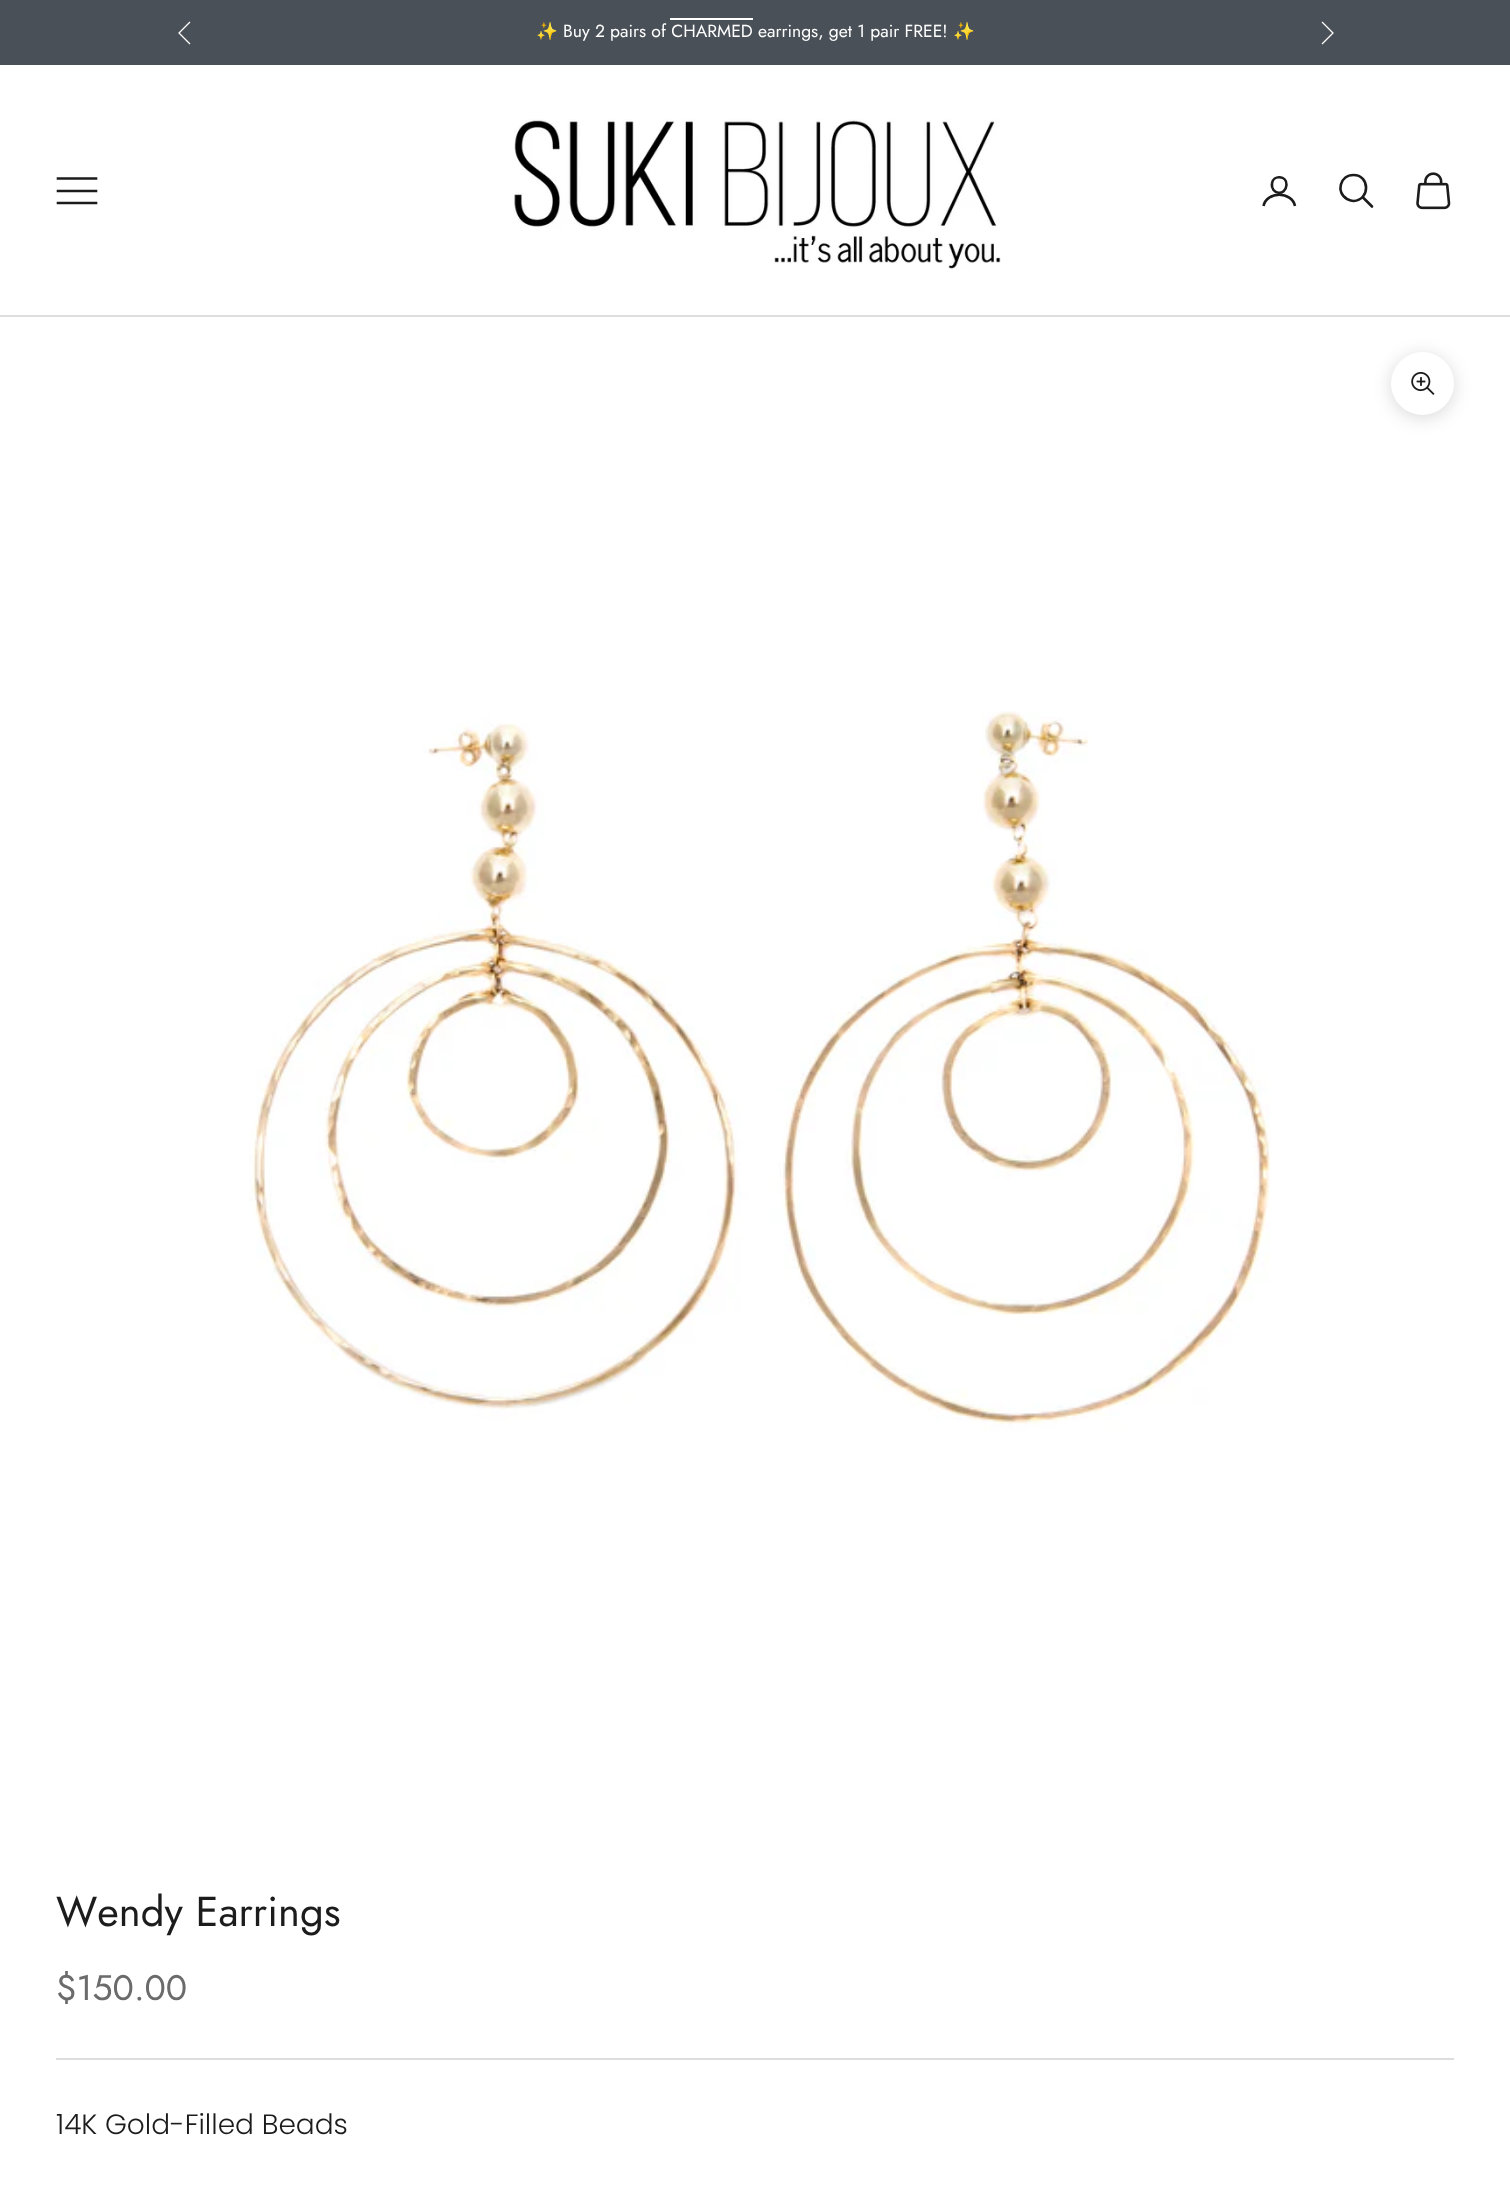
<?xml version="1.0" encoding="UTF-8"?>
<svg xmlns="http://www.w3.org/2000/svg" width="1510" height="2198">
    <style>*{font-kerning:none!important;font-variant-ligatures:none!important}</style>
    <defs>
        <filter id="blur1" x="-50%" y="-200%" width="200%" height="500%"><feGaussianBlur stdDeviation="9"/></filter>
    </defs>
    <rect width="100%" height="100%" fill="#FFFFFF"/>
    <rect x="0" y="0" width="1510" height="65" fill="#495057"/>
    <path d="M 189.5 22.5 L 179 33 L 189.5 43.5" fill="none" stroke="#FFFFFF" stroke-width="1.3" stroke-linecap="square"/>
    <rect x="670" y="18" width="83" height="2" fill="#FFFFFF"/>
    <text x="536" y="37" font-family="Noto Color Emoji" font-size="17.5" fill="#FFFFFF">✨</text>
    <text x="563" y="37" font-family="Jost" font-size="17.5" fill="#FFFFFF">Buy 2 pairs of CHARMED earrings, get 1 pair FREE!</text>
    <text x="953" y="37" font-family="Noto Color Emoji" font-size="17.5" fill="#FFFFFF">✨</text>
    <path d="M 1322.5 43.5 L 1333 33 L 1322.5 22.5" fill="none" stroke="#FFFFFF" stroke-width="1.3" stroke-linecap="square"/>
    <rect x="0" y="315" width="1510" height="2" fill="#DDDDDD"/>
    <path d="M 58 203 H 96 M 58 191 H 96 M 58 178.5 H 96" fill="none" stroke="#1C1C1C" stroke-width="2.6" stroke-linecap="square"/>
    <image x="514" y="119" width="487" height="150" href="img_01.png"/>
    <path d="M 1286.5 185 C 1285.5 196.5 1270.5 194.5 1272 183.5 C 1273 174.5 1287 175.5 1286.5 185 Z" fill="none" stroke="#1C1C1C" stroke-width="2.6" stroke-linecap="round" stroke-linejoin="round"/>
    <path d="M 1263.5 206 C 1266.5 191 1292 191 1295 206" fill="none" stroke="#1C1C1C" stroke-width="2.6"/>
    <path d="M 1353.5 175 C 1340 175 1335.5 192.5 1347 199 C 1349 200 1351 201 1353.5 201 C 1370.5 200 1370 175 1353.5 175 Z" fill="none" stroke="#1C1C1C" stroke-width="2.6"/>
    <path d="M 1363 197.5 L 1372 206.5" fill="none" stroke="#1C1C1C" stroke-width="2.6" stroke-linecap="round"/>
    <image x="1416" y="172" width="35" height="38" href="img_02.png"/>
    <rect x="1391" y="355" width="63" height="63" rx="31.5" fill="#1C1C1C" fill-opacity="0.15" filter="url(#blur1)"/>
    <circle cx="1422.5" cy="383.5" r="31.5" fill="#FFFFFF"/>
    <image x="1411" y="372" width="24" height="23" href="img_03.png"/>
    <image x="249" y="711" width="1022" height="720" href="img_04.png"/>
    <text x="56" y="1926" font-family="Jost" font-size="41.75" fill="#1C1C1C">Wendy Earrings</text>
    <text x="56" y="2000" font-family="Jost" font-size="35.5" fill="#6B6B6B">$150.00</text>
    <rect x="56" y="2058" width="1398" height="2" fill="#DDDDDD"/>
    <text x="56" y="2134" font-family="Poppins" font-size="28" font-weight="300" fill="#1C1C1C">14K Gold-Filled Beads</text>
</svg>
